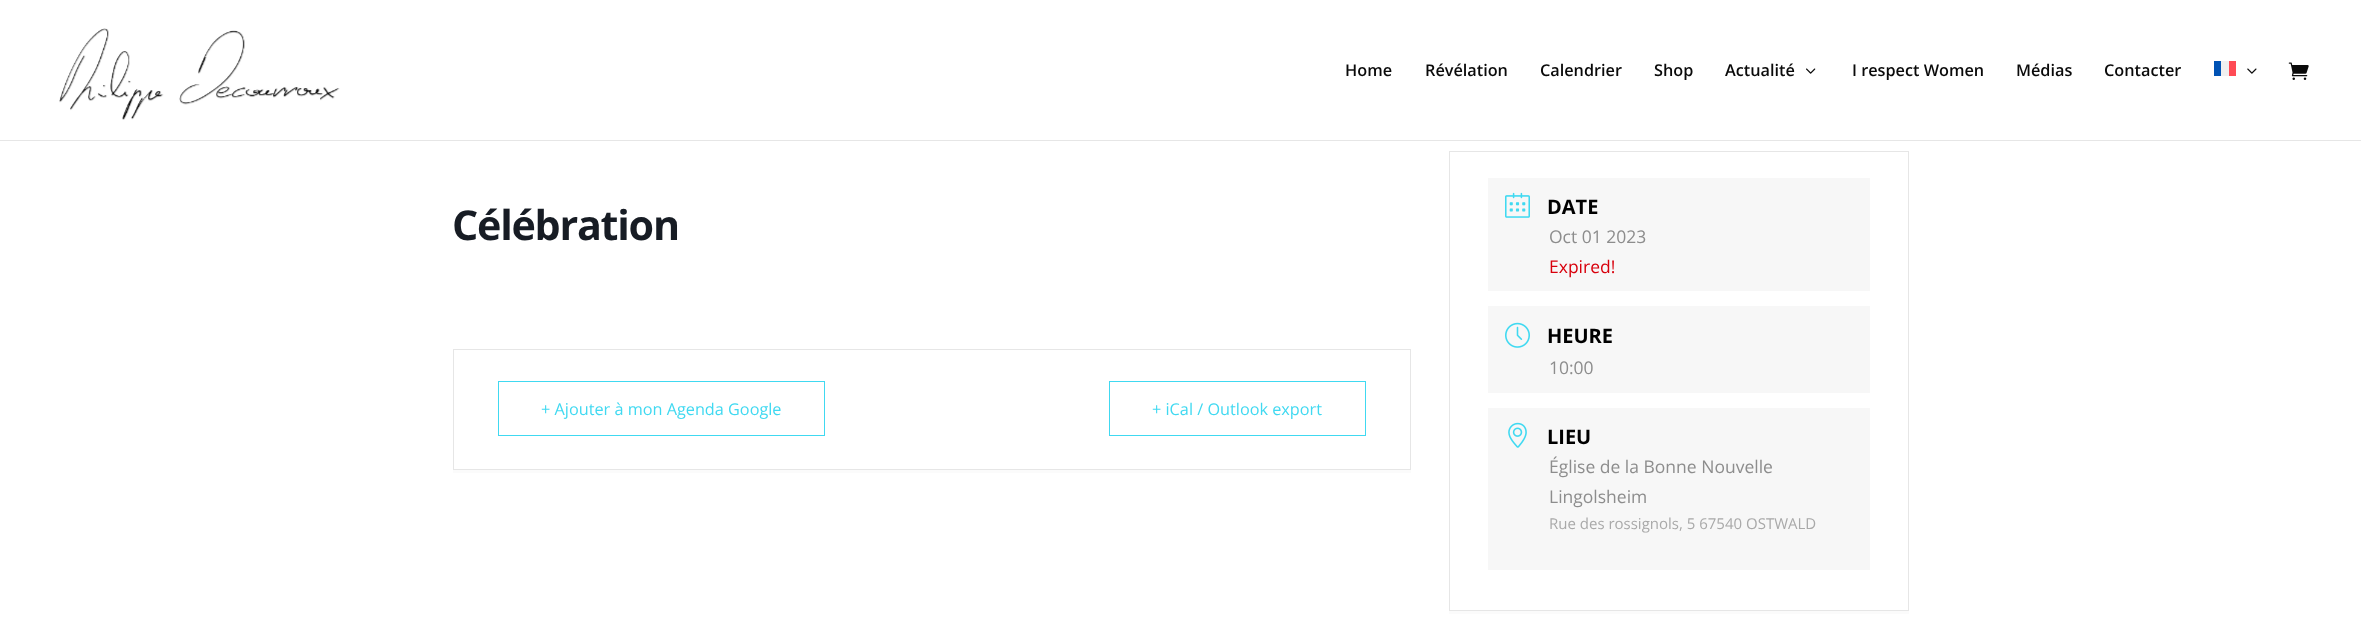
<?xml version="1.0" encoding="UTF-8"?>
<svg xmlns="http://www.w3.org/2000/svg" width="2361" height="637">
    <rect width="100%" height="100%" fill="#FFFFFF"/>
    <rect x="0" y="140" width="2361" height="1" fill="#E6E6E6"/>
    <image x="59" y="28" width="281" height="92" href="img_01.png"/>
    <text x="1345" y="76" font-family="Open Sans" font-size="16.25" font-weight="600" fill="#0A0A0A">Home</text>
    <text x="1425" y="76" font-family="Open Sans" font-size="16.25" font-weight="600" fill="#0A0A0A">Révélation</text>
    <text x="1540" y="76" font-family="Open Sans" font-size="16.25" font-weight="600" fill="#0A0A0A">Calendrier</text>
    <text x="1654" y="76" font-family="Open Sans" font-size="16.25" font-weight="600" fill="#0A0A0A">Shop</text>
    <text x="1725" y="76" font-family="Open Sans" font-size="16.25" font-weight="600" fill="#0A0A0A">Actualité</text>
    <image x="1806" y="68" width="10" height="6" href="img_02.png"/>
    <text x="1852" y="76" font-family="Open Sans" font-size="16.25" font-weight="600" fill="#0A0A0A">I respect Women</text>
    <text x="2016" y="76" font-family="Open Sans" font-size="16.25" font-weight="600" fill="#0A0A0A">Médias</text>
    <text x="2104" y="76" font-family="Open Sans" font-size="16.25" font-weight="600" fill="#0A0A0A">Contacter</text>
    <rect x="2214" y="61" width="7" height="15" fill="#0052B4"/>
    <rect x="2221" y="61" width="8" height="15" fill="#F0F0F0"/>
    <rect x="2229" y="61" width="7" height="15" fill="#FF4B55"/>
    <image x="2247" y="68" width="10" height="6" href="img_03.png"/>
    <image x="2288" y="62" width="21" height="18" href="img_04.png"/>
    <text x="452" y="240" font-family="Open Sans" font-size="41.25" font-weight="700" letter-spacing="-1.25" fill="#171C24">Célébration</text>
    <rect x="453" y="470" width="958" height="3" fill="#FBFBFB"/>
    <rect x="453.5" y="349.5" width="957" height="120" fill="none" stroke="#E6E6E6"/>
    <rect x="498.5" y="381.5" width="326" height="54" fill="none" stroke="#40D9F1"/>
    <text x="541" y="415" font-family="Open Sans" font-size="16.25" fill="#40D9F1">+ Ajouter à mon Agenda Google</text>
    <rect x="1109.5" y="381.5" width="256" height="54" fill="none" stroke="#40D9F1"/>
    <text x="1152" y="415" font-family="Open Sans" font-size="16.25" fill="#40D9F1">+ iCal / Outlook export</text>
    <path d="M 1449 611 V 614 H 1909 V 154 V 611 Z" fill="#FBFBFB"/>
    <rect x="1449.5" y="151.5" width="459" height="459" fill="none" stroke="#E6E6E6"/>
    <rect x="1488" y="178" width="382" height="113" fill="#F7F7F7"/>
    <image x="1505" y="192" width="25" height="26" href="img_05.png"/>
    <text x="1547" y="214" font-family="Open Sans" font-size="20" font-weight="700" fill="#000000">DATE</text>
    <text x="1549" y="243" font-family="Open Sans" font-size="17.5" fill="#8D8D8D">Oct 01 2023</text>
    <text x="1549" y="273" font-family="Open Sans" font-size="17.5" fill="#D8000C">Expired!</text>
    <rect x="1488" y="306" width="382" height="87" fill="#F7F7F7"/>
    <image x="1505" y="322" width="25" height="26" href="img_06.png"/>
    <text x="1547" y="343" font-family="Open Sans" font-size="20" font-weight="700" fill="#000000">HEURE</text>
    <text x="1549" y="374" font-family="Open Sans" font-size="17.5" fill="#8D8D8D">10:00</text>
    <rect x="1488" y="408" width="382" height="162" fill="#F7F7F7"/>
    <image x="1508" y="422" width="19" height="26" href="img_07.png"/>
    <text x="1547" y="444" font-family="Open Sans" font-size="20" font-weight="700" fill="#000000">LIEU</text>
    <text font-family="Open Sans" font-size="17.5" fill="#8D8D8D">
        <tspan x="1549" y="473">Église de la Bonne Nouvelle</tspan>
        <tspan x="1549" y="503">Lingolsheim</tspan>
    </text>
    <text x="1549" y="529" font-family="Open Sans" font-size="15" fill="#A9A9A9">Rue des rossignols, 5 67540 OSTWALD</text>
</svg>
